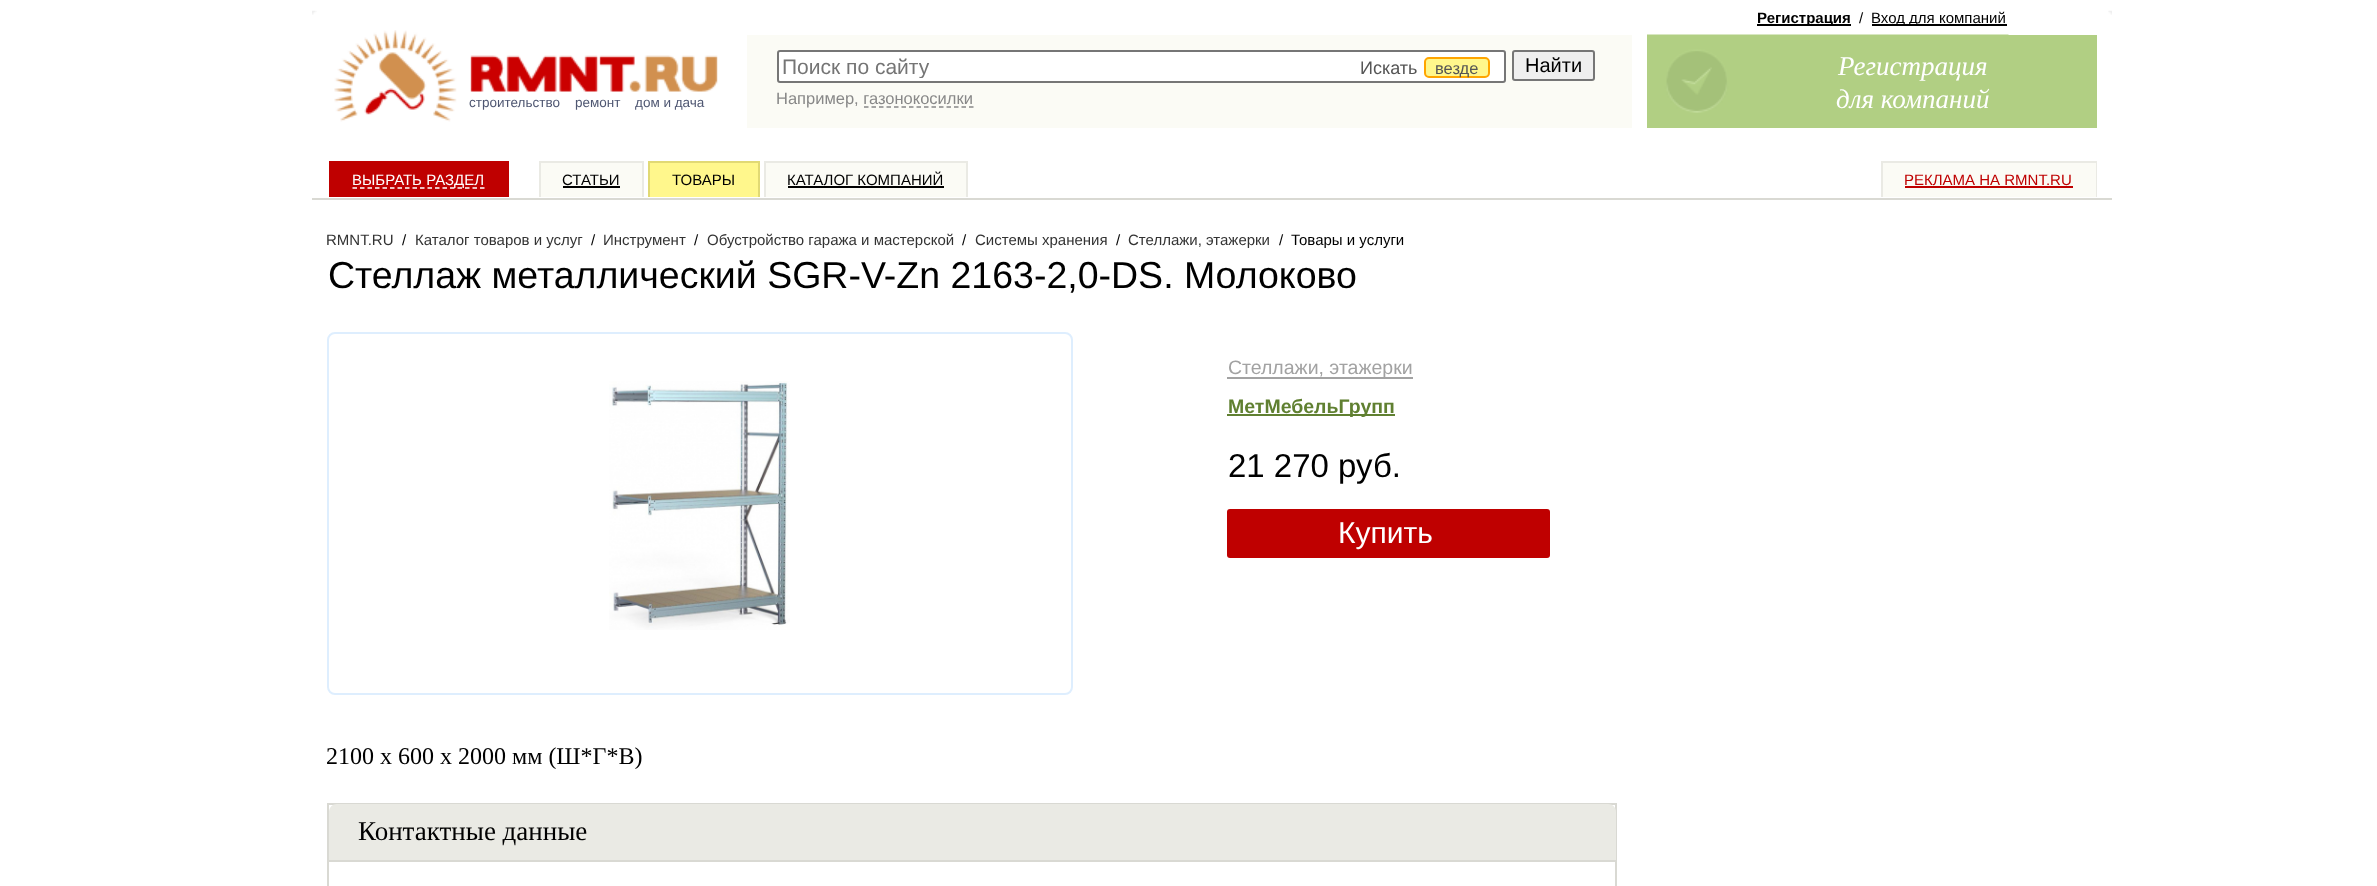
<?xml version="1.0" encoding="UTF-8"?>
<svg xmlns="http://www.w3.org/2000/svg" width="2377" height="886">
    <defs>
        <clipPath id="clip1"><rect x="783" y="54" width="483" height="24"/></clipPath>
    </defs>
    <rect width="100%" height="100%" fill="#FFFFFF"/>
    <image x="312" y="10" width="5" height="5" href="img_01.png"/>
    <image x="334" y="30" width="384" height="92" href="img_02.png"/>
    <text x="469" y="107" font-family="Liberation Sans" font-size="13.5" fill="#4F5772">строительство</text>
    <text x="575" y="107" font-family="Liberation Sans" font-size="13.5" fill="#4F5772">ремонт</text>
    <text x="635" y="107" font-family="Liberation Sans" font-size="13.5" fill="#4F5772">дом и дача</text>
    <rect x="747" y="35" width="885" height="93" fill="#FBFBF5"/>
    <rect x="778" y="51" width="727" height="31" rx="2" fill="#FFFFFF" stroke="#767676" stroke-width="2"/>
    <g clip-path="url(#clip1)">
        <text x="782" y="74" font-family="Liberation Sans" font-size="21" fill="#757575">Поиск по сайту</text>
    </g>
    <text x="1360" y="74" font-family="Liberation Sans" font-size="18" fill="#555555">Искать</text>
    <rect x="1425" y="58" width="64" height="19" rx="4" fill="#FFF78C" stroke="#FFA500" stroke-width="2"/>
    <text x="1435" y="74" font-family="Liberation Sans" font-size="16.5" fill="#555555">везде</text>
    <rect x="1513" y="51" width="81" height="29" rx="2" fill="#EFEFEF" stroke="#767676" stroke-width="2"/>
    <text x="1525" y="72" font-family="Liberation Sans" font-size="20" fill="#000000">Найти</text>
    <text x="776" y="104" font-family="Liberation Sans" font-size="16.5" fill="#888888">Например, газонокосилки</text>
    <path d="M 864 107 H 973.5" fill="none" stroke="#888888" stroke-width="1.5" stroke-dasharray="4.5 3"/>
    <rect x="1757" y="24" width="94" height="2" fill="#000000"/>
    <text x="1757" y="23" font-family="Liberation Sans" font-size="15" font-weight="700" fill="#000000">Регистрация</text>
    <text x="1859" y="23" font-family="Liberation Sans" font-size="15" fill="#000000">/</text>
    <rect x="1872" y="24" width="135" height="2" fill="#000000"/>
    <text x="1871" y="23" font-family="Liberation Sans" font-size="15" fill="#000000">Вход для компаний</text>
    <rect x="1647" y="35" width="450" height="93" fill="#B1CF83"/>
    <image x="1647" y="34" width="362" height="79" href="img_03.png"/>
    <text x="1838" y="75" font-family="Liberation Serif" font-size="27" font-style="italic" fill="#FFFFFF">Регистрация</text>
    <text x="1836" y="108" font-family="Liberation Serif" font-size="27" font-style="italic" fill="#FFFFFF">для компаний</text>
    <rect x="312" y="198" width="1800" height="2" fill="#D9D9D3"/>
    <rect x="329" y="161" width="180" height="36" fill="#BF0000"/>
    <path d="M 352.5 188 H 484.5" fill="none" stroke="#FFFFFF" stroke-width="1.5" stroke-dasharray="4.5 3"/>
    <text x="352" y="185" font-family="Liberation Sans" font-size="15" fill="#FFFFFF">ВЫБРАТЬ РАЗДЕЛ</text>
    <rect x="541" y="163" width="101" height="34" fill="#FBFBF5"/>
    <rect x="539" y="161" width="105" height="2" fill="#EAEAE4"/>
    <rect x="642" y="161" width="2" height="36" fill="#EAEAE4"/>
    <rect x="539" y="161" width="2" height="36" fill="#EAEAE4"/>
    <text x="562" y="185" font-family="Liberation Sans" font-size="15" fill="#000000">СТАТЬИ</text>
    <rect x="563" y="186" width="57" height="2" fill="#000000"/>
    <rect x="650" y="163" width="108" height="34" fill="#FFF78C"/>
    <rect x="648" y="161" width="111" height="2" fill="#E1D974"/>
    <rect x="758" y="161" width="2" height="36" fill="#E1D974"/>
    <rect x="648" y="161" width="2" height="36" fill="#E1D974"/>
    <text x="672" y="185" font-family="Liberation Sans" font-size="15" fill="#000000">ТОВАРЫ</text>
    <rect x="766" y="163" width="200" height="34" fill="#FBFBF5"/>
    <rect x="764" y="161" width="204" height="2" fill="#EAEAE4"/>
    <rect x="966" y="161" width="2" height="36" fill="#EAEAE4"/>
    <rect x="764" y="161" width="2" height="36" fill="#EAEAE4"/>
    <text x="787" y="185" font-family="Liberation Sans" font-size="15" fill="#000000">КАТАЛОГ КОМПАНИЙ</text>
    <rect x="788" y="186" width="156" height="2" fill="#000000"/>
    <rect x="1883" y="163" width="213" height="34" fill="#FBFBF5"/>
    <rect x="1881" y="161" width="216" height="2" fill="#EAEAE4"/>
    <rect x="2096" y="161" width="1" height="36" fill="#EAEAE4"/>
    <rect x="1881" y="161" width="2" height="36" fill="#EAEAE4"/>
    <text x="1904" y="185" font-family="Liberation Sans" font-size="15" fill="#BF0000">РЕКЛАМА НА RMNT.RU</text>
    <rect x="1905" y="186" width="168" height="2" fill="#BF0000"/>
    <text x="326" y="245" font-family="Liberation Sans" font-size="15" fill="#333333">RMNT.RU</text>
    <text x="402" y="245" font-family="Liberation Sans" font-size="15" fill="#000000">/</text>
    <text x="415" y="245" font-family="Liberation Sans" font-size="15" fill="#333333">Каталог товаров и услуг</text>
    <text x="591" y="245" font-family="Liberation Sans" font-size="15" fill="#000000">/</text>
    <text x="603" y="245" font-family="Liberation Sans" font-size="15" fill="#333333">Инструмент</text>
    <text x="694" y="245" font-family="Liberation Sans" font-size="15" fill="#000000">/</text>
    <text x="707" y="245" font-family="Liberation Sans" font-size="15" fill="#333333">Обустройство гаража и мастерской</text>
    <text x="962" y="245" font-family="Liberation Sans" font-size="15" fill="#000000">/</text>
    <text x="975" y="245" font-family="Liberation Sans" font-size="15" fill="#333333">Системы хранения</text>
    <text x="1116" y="245" font-family="Liberation Sans" font-size="15" fill="#000000">/</text>
    <text x="1128" y="245" font-family="Liberation Sans" font-size="15" fill="#333333">Стеллажи, этажерки</text>
    <text x="1279" y="245" font-family="Liberation Sans" font-size="15" fill="#000000">/</text>
    <text x="1291" y="245" font-family="Liberation Sans" font-size="15" fill="#000000">Товары и услуги</text>
    <text x="328" y="288" font-family="Liberation Sans" font-size="37.5" fill="#000000">Стеллаж металлический SGR-V-Zn 2163-2,0-DS. Молоково</text>
    <rect x="328" y="333" width="744" height="361" rx="7" fill="none" stroke="#DEEEFE" stroke-width="2"/>
    <image x="609" y="381" width="181" height="249" href="img_04.png"/>
    <rect x="1227" y="377" width="186" height="2" fill="#A2A2A2"/>
    <text x="1228" y="374" font-family="Liberation Sans" font-size="19.5" fill="#A2A2A2">Стеллажи, этажерки</text>
    <rect x="1227" y="414" width="168" height="2" fill="#608031"/>
    <text x="1228" y="413" font-family="Liberation Sans" font-size="19.5" font-weight="700" fill="#608031">МетМебельГрупп</text>
    <text x="1228" y="477" font-family="Liberation Sans" font-size="33" fill="#000000">21 270 руб.</text>
    <rect x="1227" y="509" width="323" height="49" rx="3" fill="#BF0000"/>
    <text x="1338" y="543" font-family="Liberation Sans" font-size="30" fill="#FFFFFF">Купить</text>
    <text x="326" y="764" font-family="Liberation Serif" font-size="24" fill="#000000">2100 х 600 х 2000 мм (Ш*Г*В)</text>
    <rect x="328" y="804" width="1288" height="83" fill="none" stroke="#D9D9D3" stroke-width="2"/>
    <path d="M 337 804 H 1608 C 1612.5 804 1616 807.5 1616 812 V 861 H 329 V 812 C 329 807.5 332.5 804 337 804 Z" fill="#EAEAE4"/>
    <rect x="329" y="860" width="1287" height="2" fill="#D9D9D3"/>
    <text x="358" y="840" font-family="Liberation Serif" font-size="27" fill="#000000">Контактные данные</text>
    <image x="2108" y="10" width="4" height="5" href="img_05.png"/>
</svg>
